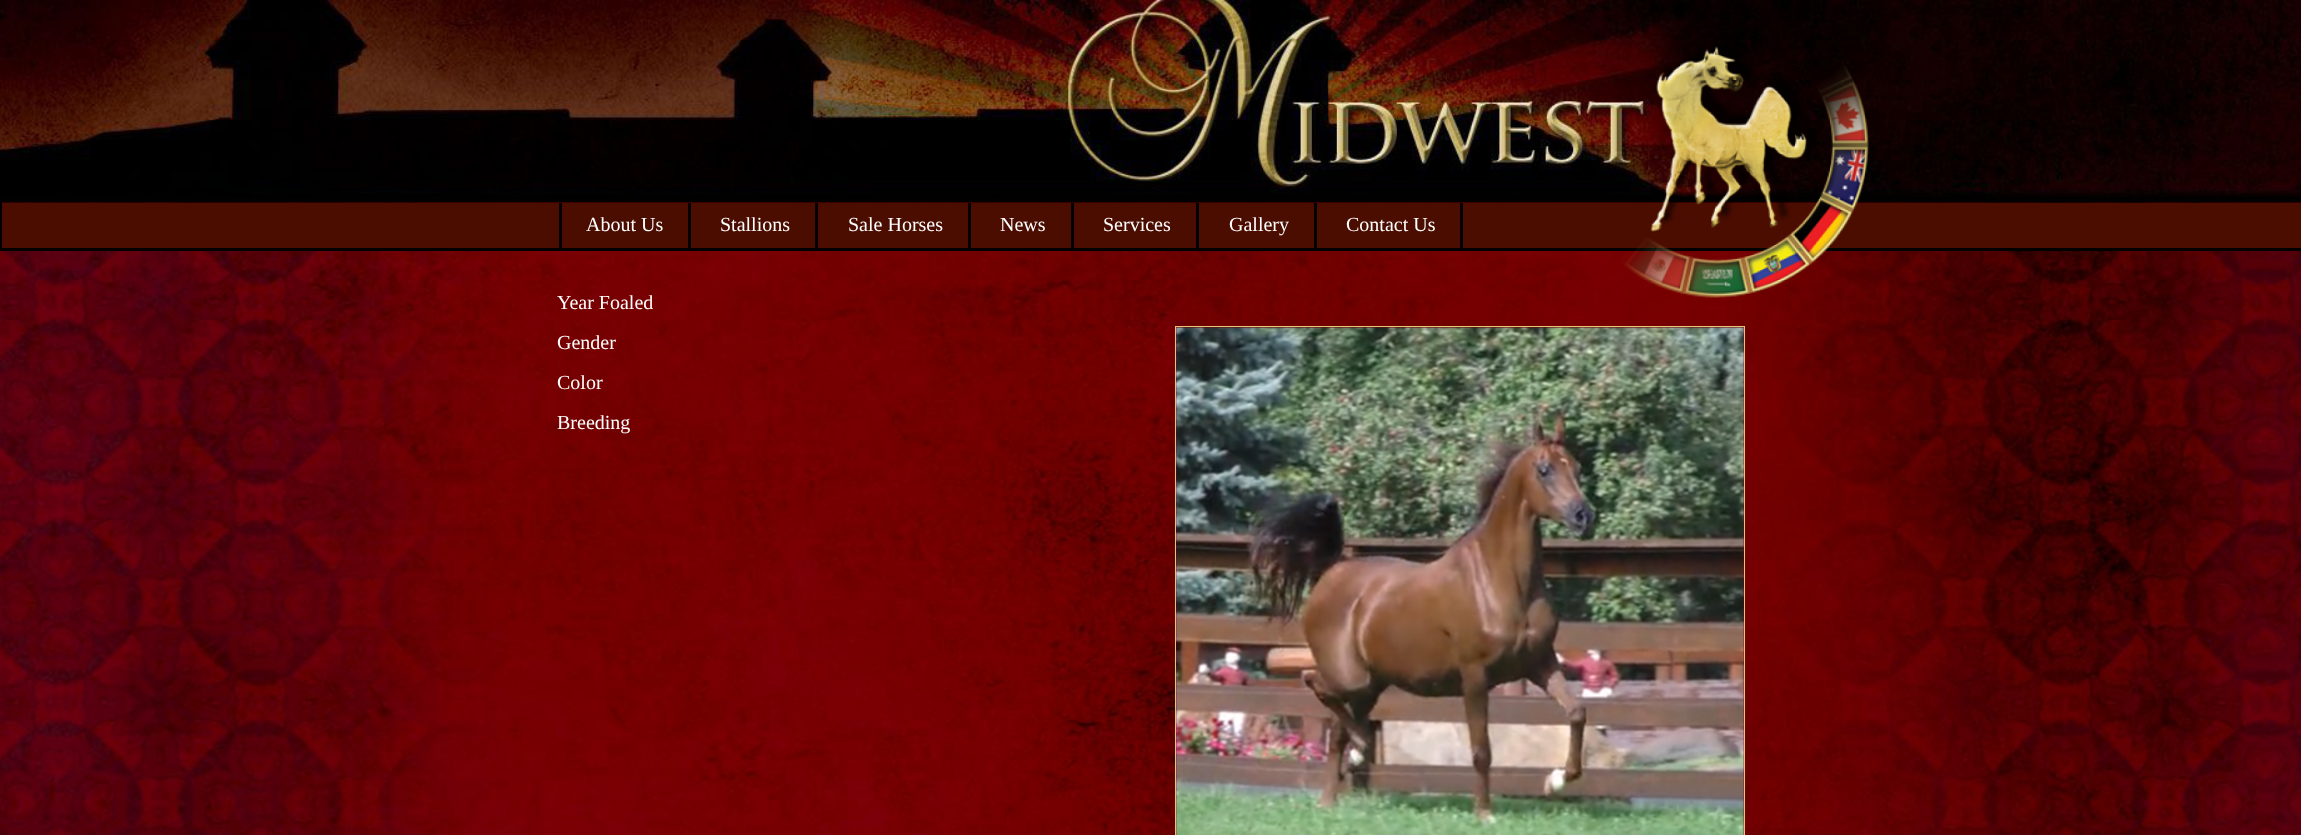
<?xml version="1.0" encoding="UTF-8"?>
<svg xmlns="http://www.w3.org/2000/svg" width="2301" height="835">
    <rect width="100%" height="100%" fill="#FFFFFF"/>
    <image x="0" y="202" width="2301" height="633" href="img_01.png"/>
    <image x="0" y="0" width="2301" height="203" href="img_02.png"/>
    <rect x="0" y="203" width="2301" height="48" fill="#4B0D00"/>
    <path d="M 2301 251 H 0 L 2 248 H 2301 Z" fill="#000000"/>
    <path d="M 0 251 V 202 H 2 V 248 Z" fill="#020000"/>
    <rect x="559" y="203" width="3" height="45" fill="#020000"/>
    <rect x="688" y="203" width="3" height="45" fill="#020000"/>
    <text x="586" y="231" font-family="Liberation Serif" font-size="20" fill="#FFFFFF">About Us</text>
    <rect x="815" y="203" width="3" height="45" fill="#020000"/>
    <text x="720" y="231" font-family="Liberation Serif" font-size="20" fill="#FFFFFF">Stallions</text>
    <rect x="968" y="203" width="3" height="45" fill="#020000"/>
    <text x="848" y="231" font-family="Liberation Serif" font-size="20" fill="#FFFFFF">Sale Horses</text>
    <rect x="1071" y="203" width="3" height="45" fill="#020000"/>
    <text x="1000" y="231" font-family="Liberation Serif" font-size="20" fill="#FFFFFF">News</text>
    <rect x="1196" y="203" width="3" height="45" fill="#020000"/>
    <text x="1103" y="231" font-family="Liberation Serif" font-size="20" fill="#FFFFFF">Services</text>
    <rect x="1314" y="203" width="3" height="45" fill="#020000"/>
    <text x="1229" y="231" font-family="Liberation Serif" font-size="20" fill="#FFFFFF">Gallery</text>
    <rect x="1460" y="203" width="3" height="45" fill="#020000"/>
    <text x="1346" y="231" font-family="Liberation Serif" font-size="20" fill="#FFFFFF">Contact Us</text>
    <image x="1621" y="44" width="248" height="254" href="img_03.png"/>
    <text x="557" y="309" font-family="Liberation Serif" font-size="20" fill="#FFFFFF">Year Foaled</text>
    <text x="557" y="349" font-family="Liberation Serif" font-size="20" fill="#FFFFFF">Gender</text>
    <text x="557" y="389" font-family="Liberation Serif" font-size="20" fill="#FFFFFF">Color</text>
    <text x="557" y="429" font-family="Liberation Serif" font-size="20" fill="#FFFFFF">Breeding</text>
    <rect x="1175.5" y="326.5" width="569" height="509" fill="none" stroke="#E3C87B"/>
    <image x="1176" y="327" width="568" height="508" href="img_04.png"/>
</svg>
